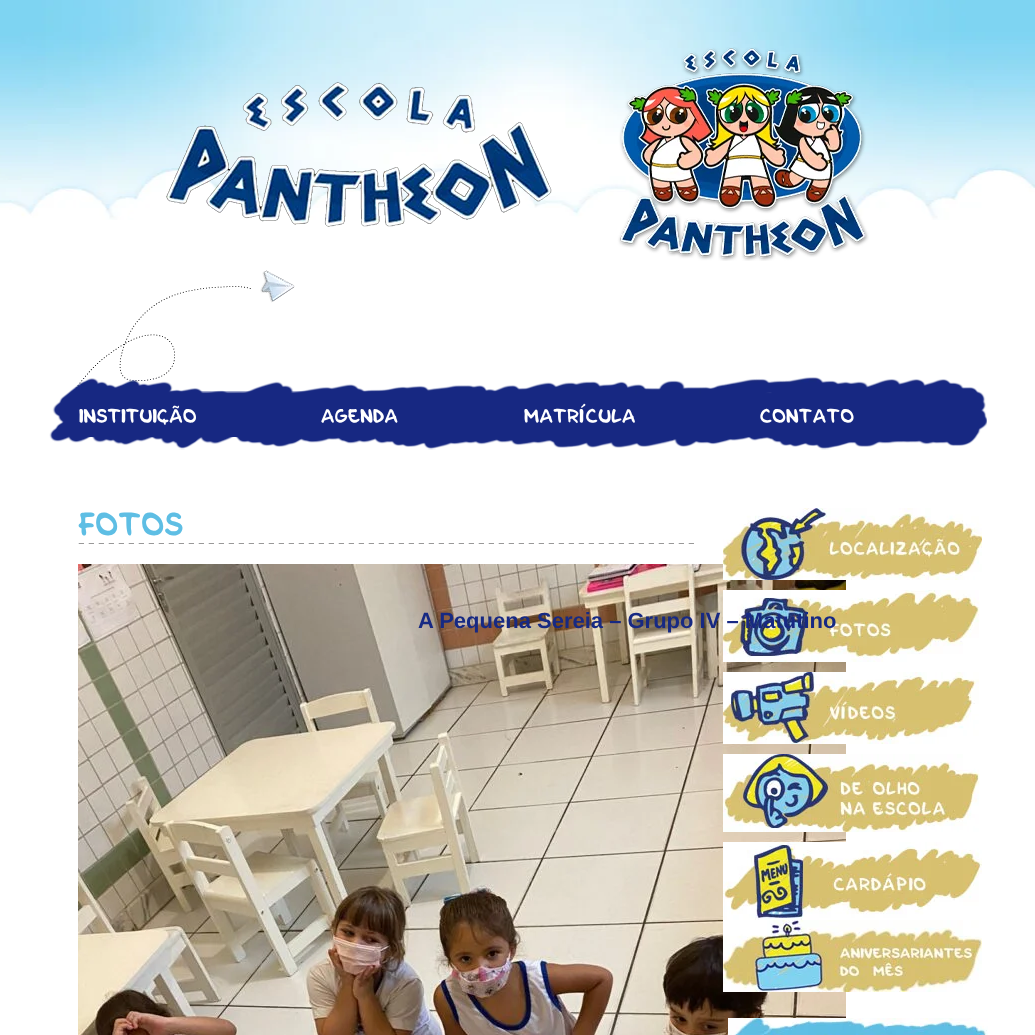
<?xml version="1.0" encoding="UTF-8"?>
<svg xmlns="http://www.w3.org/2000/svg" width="1035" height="1035">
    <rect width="100%" height="100%" fill="#FFFFFF"/>
    <image x="0" y="0" width="1035" height="220" href="img_01.png"/>
    <image x="166" y="47" width="703" height="214" href="img_02.png"/>
    <image x="49" y="270" width="938" height="180" href="img_03.png"/>
    <text x="79" y="423" font-family="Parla" font-size="18" fill="#FFFFFF">INSTITUIÇÃO</text>
    <text x="321" y="423" font-family="Parla" font-size="18" fill="#FFFFFF">AGENDA</text>
    <text x="524" y="423" font-family="Parla" font-size="18" fill="#FFFFFF">MATRÍCULA</text>
    <text x="760" y="423" font-family="Parla" font-size="18" fill="#FFFFFF">CONTATO</text>
    <image x="78" y="543" width="616" height="1" href="img_04.png"/>
    <text x="78" y="536" font-family="Parla" font-size="30" fill="#5EBEE4">FOTOS</text>
    <image x="78" y="564" width="768" height="471" href="img_05.png"/>
    <image x="723" y="590" width="257" height="72" href="img_07.png"/>
    <text x="418" y="628" font-family="Liberation Sans" font-size="22" font-weight="700" fill="#172983">A Pequena Sereia – Grupo IV – Matutino</text>
    <image x="723" y="508" width="259" height="72" href="img_06.png"/>
    <image x="723" y="672" width="256" height="72" href="img_08.png"/>
    <image x="723" y="754" width="257" height="78" href="img_09.png"/>
    <image x="723" y="842" width="259" height="78" href="img_10.png"/>
    <image x="723" y="920" width="259" height="72" href="img_11.png"/>
    <image x="728" y="1018" width="260" height="17" href="img_12.png"/>
</svg>
